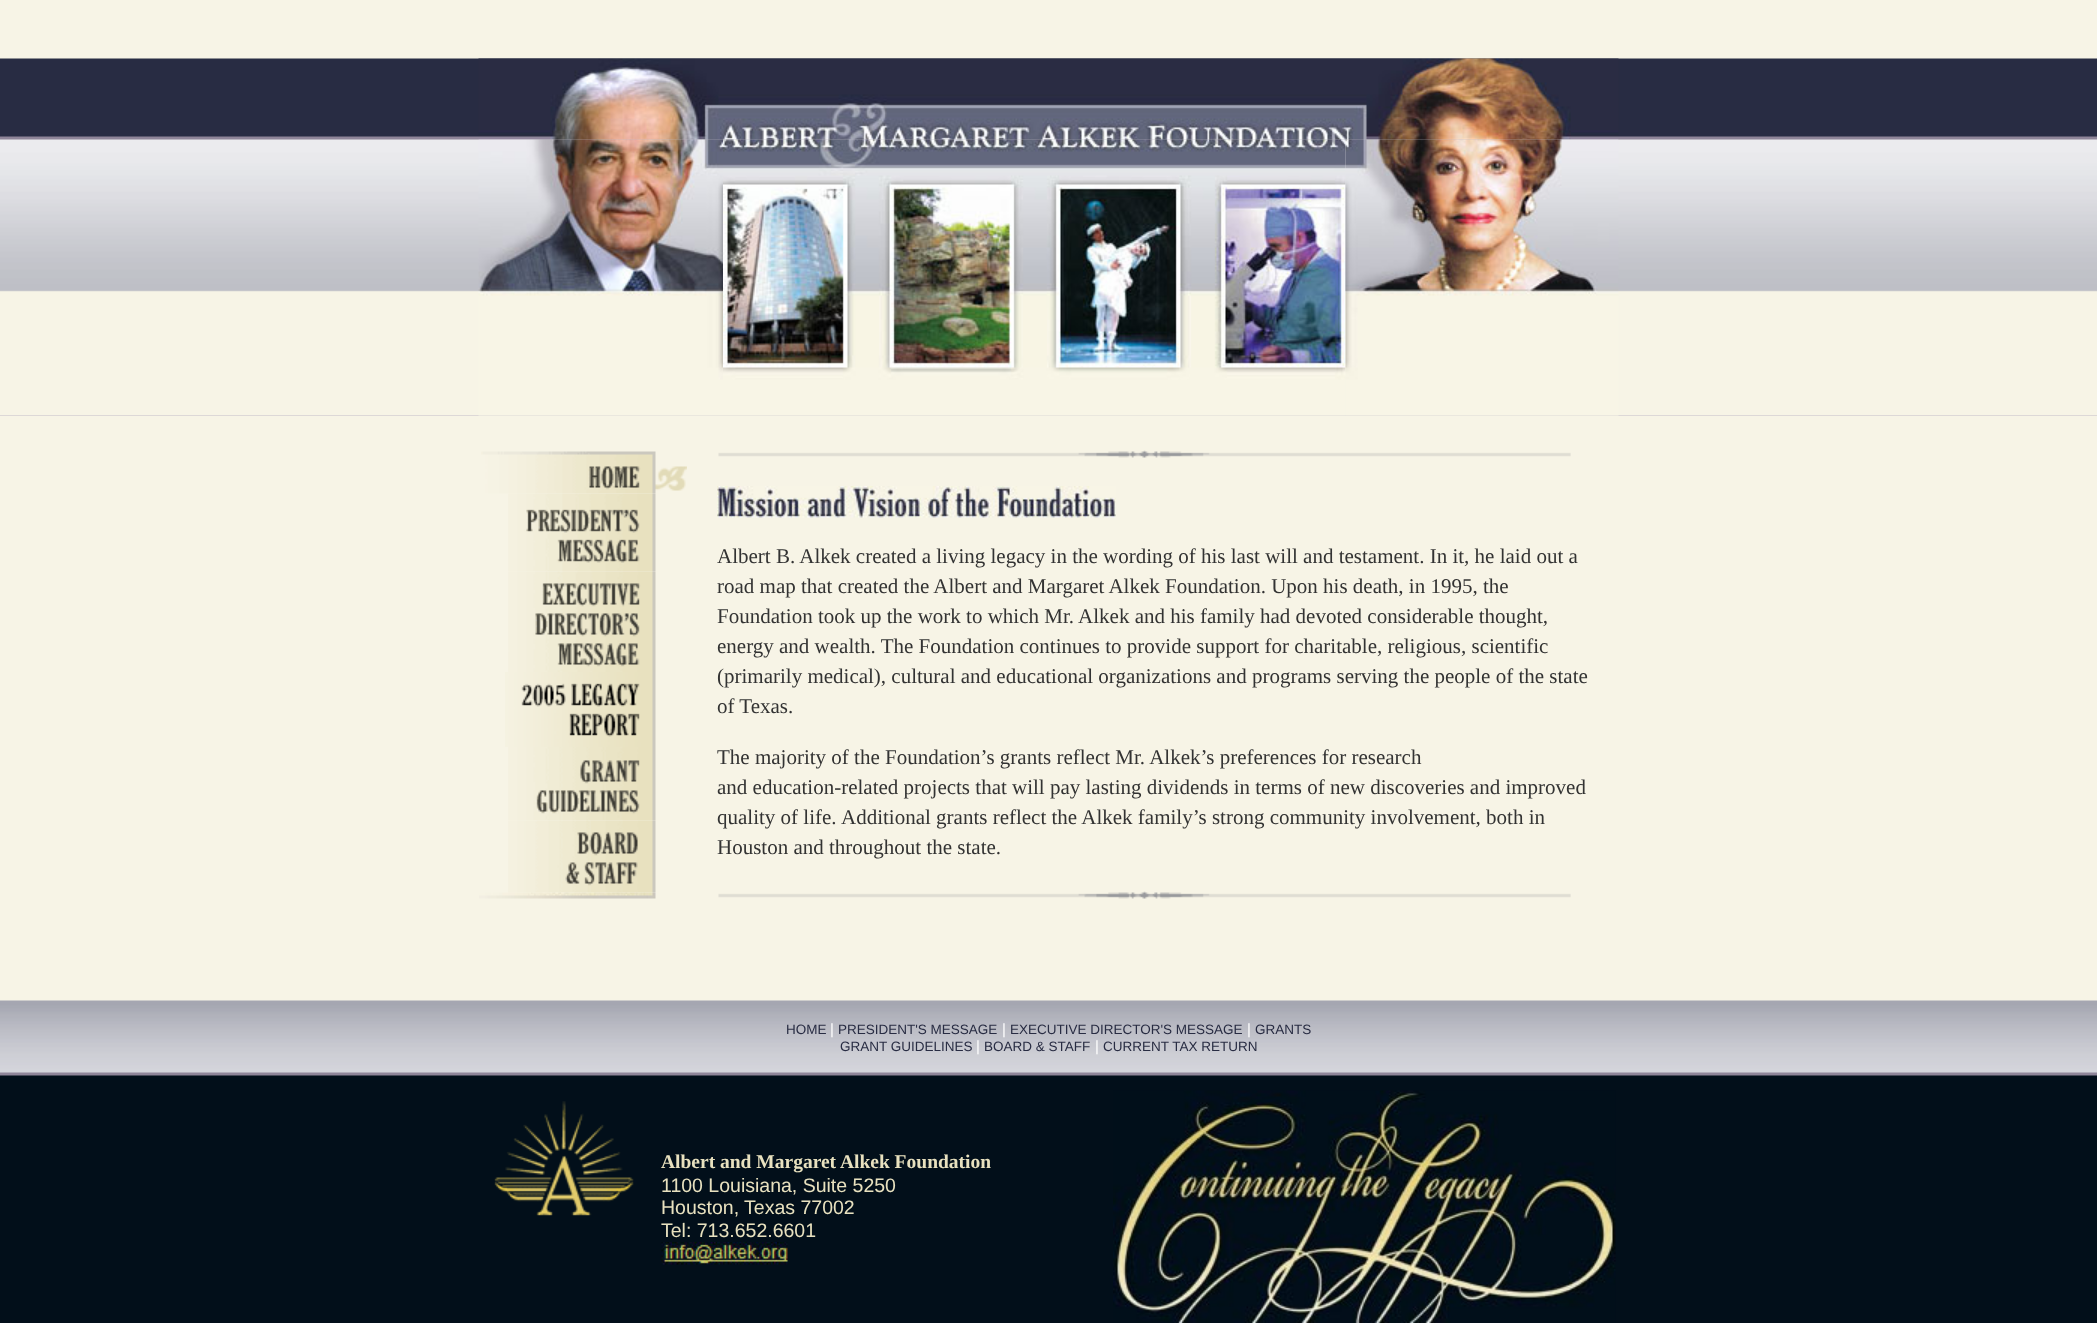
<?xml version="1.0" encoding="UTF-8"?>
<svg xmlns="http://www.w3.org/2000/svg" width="2097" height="1323">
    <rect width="100%" height="100%" fill="#F7F4E6"/>
    <rect x="0" y="415" width="2097" height="1" fill="#C3BDC9"/>
    <image x="0" y="58" width="2097" height="358" href="img_01.png"/>
    <image x="478" y="58" width="1141" height="82" href="img_02.png"/>
    <image x="478" y="139" width="245" height="277" href="img_03.png"/>
    <image x="723" y="139" width="623" height="277" href="img_04.png"/>
    <image x="1345" y="139" width="274" height="277" href="img_05.png"/>
    <image x="481" y="451" width="206" height="43" href="img_06.png"/>
    <image x="508" y="493" width="148" height="79" href="img_07.png"/>
    <image x="508" y="571" width="148" height="101" href="img_08.png"/>
    <image x="505" y="672" width="151" height="75" href="img_09.png"/>
    <image x="508" y="747" width="148" height="74" href="img_10.png"/>
    <image x="508" y="820" width="148" height="73" href="img_11.png"/>
    <image x="479" y="892" width="177" height="7" href="img_12.png"/>
    <image x="718" y="450" width="853" height="8" href="img_13.png"/>
    <image x="717" y="486" width="399" height="32" href="img_14.png"/>
    <text font-family="Liberation Serif" font-size="21" fill="#333333">
        <tspan x="717" y="563">Albert B. Alkek created a living legacy in the wording of his last will and testament. In it, he laid out a</tspan>
        <tspan x="717" y="593">road map that created the Albert and Margaret Alkek Foundation. Upon his death, in 1995, the</tspan>
        <tspan x="717" y="623">Foundation took up the work to which Mr. Alkek and his family had devoted considerable thought,</tspan>
        <tspan x="717" y="653">energy and wealth. The Foundation continues to provide support for charitable, religious, scientific</tspan>
        <tspan x="717" y="683">(primarily medical), cultural and educational organizations and programs serving the people of the state</tspan>
        <tspan x="717" y="713">of Texas.</tspan>
    </text>
    <text font-family="Liberation Serif" font-size="21" fill="#333333">
        <tspan x="717" y="764">The majority of the Foundation’s grants reflect Mr. Alkek’s preferences for research</tspan>
        <tspan x="717" y="794">and education-related projects that will pay lasting dividends in terms of new discoveries and improved</tspan>
        <tspan x="717" y="824">quality of life.</tspan>
    </text>
    <text x="841" y="824" font-family="Liberation Serif" font-size="21" fill="#333333">Additional grants reflect the Alkek family’s strong community involvement, both in</text>
    <text x="717" y="854" font-family="Liberation Serif" font-size="21" fill="#333333">Houston and throughout the state.</text>
    <image x="718" y="891" width="853" height="8" href="img_13.png"/>
    <image x="0" y="1000" width="2097" height="323" href="img_15.png"/>
    <text x="786" y="1034" font-family="Liberation Sans" font-size="13.5" fill="#282C43">HOME</text>
    <text x="830" y="1034" font-family="Liberation Sans" font-size="15" fill="#FFFFFF">|</text>
    <text x="838" y="1034" font-family="Liberation Sans" font-size="13.5" fill="#282C43">PRESIDENT'S MESSAGE</text>
    <text x="1002" y="1034" font-family="Liberation Sans" font-size="15" fill="#FFFFFF">|</text>
    <text x="1010" y="1034" font-family="Liberation Sans" font-size="13.5" fill="#282C43">EXECUTIVE DIRECTOR'S MESSAGE</text>
    <text x="1247" y="1034" font-family="Liberation Sans" font-size="15" fill="#FFFFFF">|</text>
    <text x="1255" y="1034" font-family="Liberation Sans" font-size="13.5" fill="#282C43">GRANTS</text>
    <text x="840" y="1051" font-family="Liberation Sans" font-size="13.5" fill="#282C43">GRANT GUIDELINES</text>
    <text x="976" y="1051" font-family="Liberation Sans" font-size="15" fill="#FFFFFF">|</text>
    <text x="984" y="1051" font-family="Liberation Sans" font-size="13.5" fill="#282C43">BOARD &amp; STAFF</text>
    <text x="1095" y="1051" font-family="Liberation Sans" font-size="15" fill="#FFFFFF">|</text>
    <text x="1103" y="1051" font-family="Liberation Sans" font-size="13.5" fill="#282C43">CURRENT TAX RETURN</text>
    <image x="494" y="1101" width="140" height="115" href="img_16.png"/>
    <text x="661" y="1168" font-family="Liberation Serif" font-size="19.5" font-weight="700" fill="#E8E1BF">Albert and Margaret Alkek Foundation</text>
    <text font-family="Liberation Sans" font-size="19.5" fill="#E8E1BF">
        <tspan x="661" y="1192">1100 Louisiana, Suite 5250</tspan>
        <tspan x="661" y="1214">Houston, Texas 77002</tspan>
        <tspan x="661" y="1237">Tel: 713.652.6601</tspan>
    </text>
    <image x="661" y="1242" width="127" height="23" href="img_17.png"/>
    <image x="1113" y="1090" width="503" height="233" href="img_18.png"/>
</svg>
